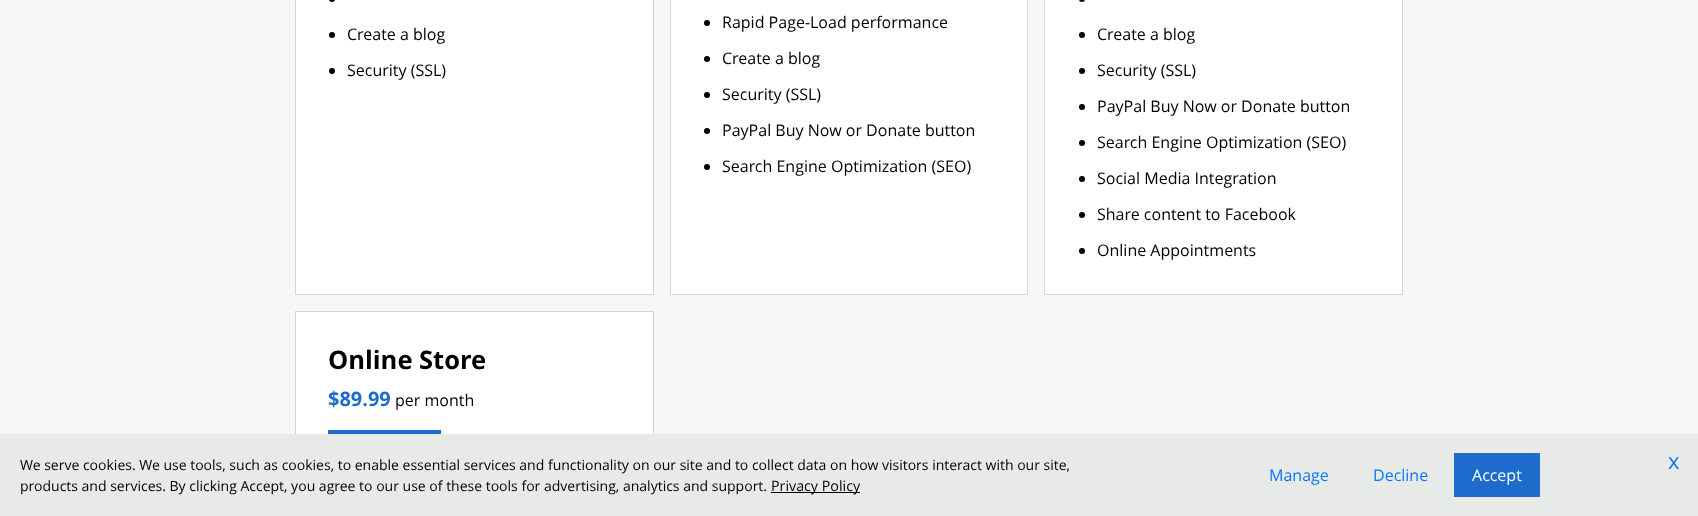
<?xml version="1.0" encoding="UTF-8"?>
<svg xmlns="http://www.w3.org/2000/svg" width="1698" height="516">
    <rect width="100%" height="100%" fill="#F5F7F8"/>
    <rect x="295.5" y="-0.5" width="358" height="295" fill="#FFFFFF" stroke="#D6D6D6"/>
    <rect x="329" y="-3" width="6" height="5" rx="3" fill="#000000"/>
    <circle cx="332" cy="35" r="3" fill="#000000"/>
    <text x="347" y="40" font-family="Open Sans" font-size="16" fill="#000000">Create a blog</text>
    <circle cx="332" cy="71" r="3" fill="#000000"/>
    <text x="347" y="76" font-family="Open Sans" font-size="16" fill="#000000">Security (SSL)</text>
    <rect x="670.5" y="-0.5" width="357" height="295" fill="#FFFFFF" stroke="#D6D6D6"/>
    <circle cx="707" cy="23" r="3" fill="#000000"/>
    <text x="722" y="28" font-family="Open Sans" font-size="16" fill="#000000">Rapid Page-Load performance</text>
    <circle cx="707" cy="59" r="3" fill="#000000"/>
    <text x="722" y="64" font-family="Open Sans" font-size="16" fill="#000000">Create a blog</text>
    <circle cx="707" cy="95" r="3" fill="#000000"/>
    <text x="722" y="100" font-family="Open Sans" font-size="16" fill="#000000">Security (SSL)</text>
    <circle cx="707" cy="131" r="3" fill="#000000"/>
    <text x="722" y="136" font-family="Open Sans" font-size="16" fill="#000000">PayPal Buy Now or Donate button</text>
    <circle cx="707" cy="167" r="3" fill="#000000"/>
    <text x="722" y="172" font-family="Open Sans" font-size="16" fill="#000000">Search Engine Optimization (SEO)</text>
    <rect x="1044.5" y="-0.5" width="358" height="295" fill="#FFFFFF" stroke="#D6D6D6"/>
    <rect x="1079" y="-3" width="6" height="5" rx="3" fill="#000000"/>
    <circle cx="1082" cy="35" r="3" fill="#000000"/>
    <text x="1097" y="40" font-family="Open Sans" font-size="16" fill="#000000">Create a blog</text>
    <circle cx="1082" cy="71" r="3" fill="#000000"/>
    <text x="1097" y="76" font-family="Open Sans" font-size="16" fill="#000000">Security (SSL)</text>
    <circle cx="1082" cy="107" r="3" fill="#000000"/>
    <text x="1097" y="112" font-family="Open Sans" font-size="16" fill="#000000">PayPal Buy Now or Donate button</text>
    <circle cx="1082" cy="143" r="3" fill="#000000"/>
    <text x="1097" y="148" font-family="Open Sans" font-size="16" fill="#000000">Search Engine Optimization (SEO)</text>
    <circle cx="1082" cy="179" r="3" fill="#000000"/>
    <text x="1097" y="184" font-family="Open Sans" font-size="16" fill="#000000">Social Media Integration</text>
    <circle cx="1082" cy="215" r="3" fill="#000000"/>
    <text x="1097" y="220" font-family="Open Sans" font-size="16" fill="#000000">Share content to Facebook</text>
    <circle cx="1082" cy="251" r="3" fill="#000000"/>
    <text x="1097" y="256" font-family="Open Sans" font-size="16" fill="#000000">Online Appointments</text>
    <rect x="296" y="312" width="357" height="122" fill="#FFFFFF"/>
    <rect x="295.5" y="311.5" width="358" height="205" fill="none" stroke="#D6D6D6"/>
    <text x="328" y="369" font-family="Open Sans" font-size="25.5" font-weight="700" fill="#000000">Online Store</text>
    <text x="328" y="406" font-family="Open Sans" font-size="20" font-weight="700" fill="#1D6CCD">$89.99</text>
    <text x="395" y="406" font-family="Open Sans" font-size="16" fill="#000000">per month</text>
    <rect x="328" y="430" width="113" height="4" fill="#1D6CCD"/>
    <rect x="0" y="434" width="1698" height="82" fill="#E8EAE8"/>
    <text font-family="Open Sans" font-size="14" fill="#000000">
        <tspan x="20" y="470">We serve cookies. We use tools, such as cookies, to enable essential services and functionality on our site and to collect data on how visitors interact with our site,</tspan>
        <tspan x="20" y="491">products and services. By clicking Accept, you agree to our use of these tools for advertising, analytics and support.</tspan>
    </text>
    <rect x="771" y="492" width="89" height="1" fill="#000000"/>
    <text x="771" y="491" font-family="Open Sans" font-size="14.25" fill="#000000">Privacy Policy</text>
    <text x="1269" y="481" font-family="Open Sans" font-size="16" fill="#0877FF">Manage</text>
    <text x="1373" y="481" font-family="Open Sans" font-size="16" fill="#0877FF">Decline</text>
    <rect x="1454" y="453" width="86" height="44" fill="#1D6CCD"/>
    <text x="1472" y="481" font-family="Open Sans" font-size="16" fill="#FFFFFF">Accept</text>
    <text x="1668" y="469" font-family="Open Sans" font-size="22" fill="#0877FF">x</text>
</svg>
